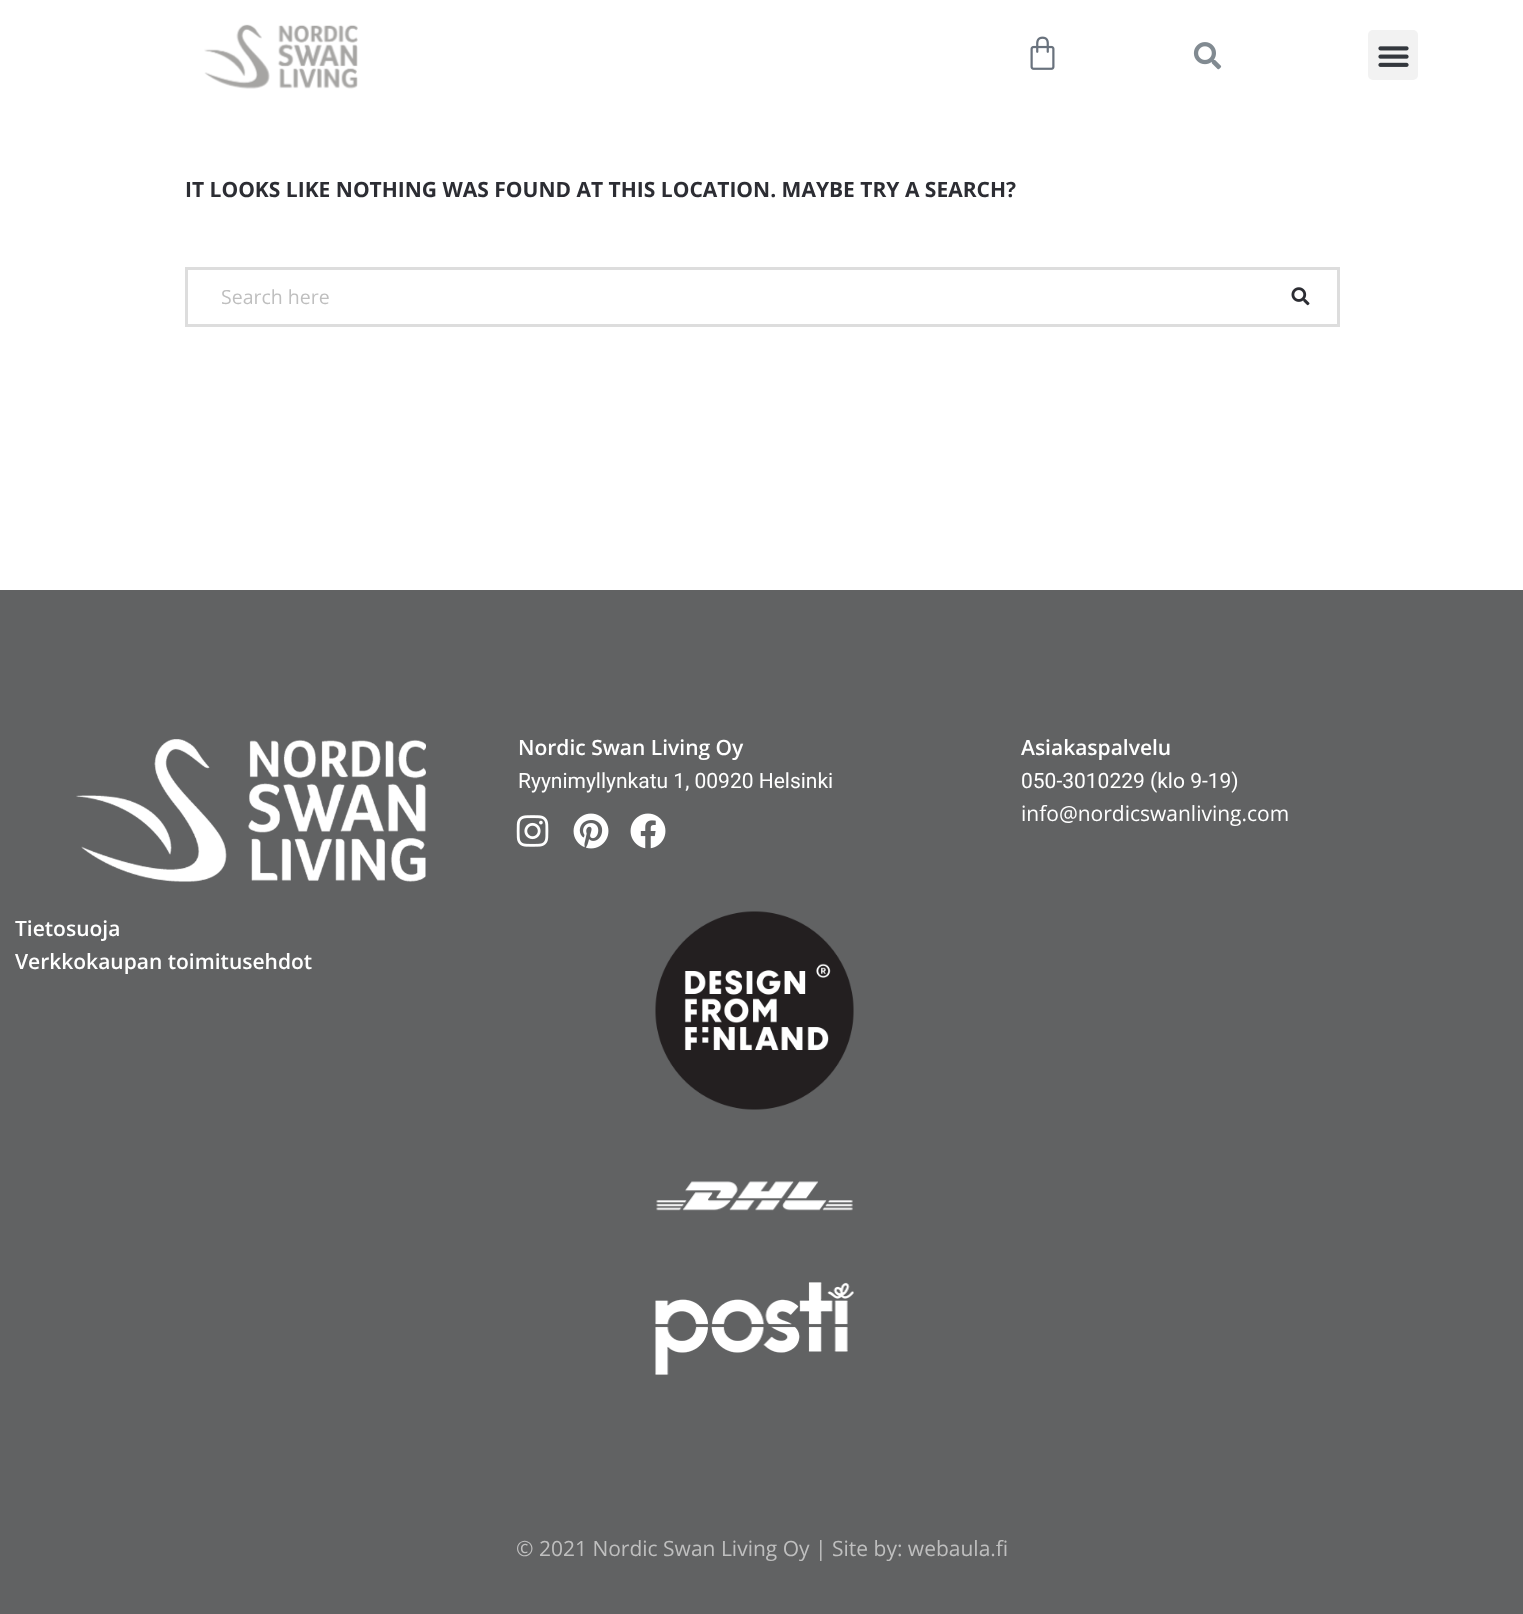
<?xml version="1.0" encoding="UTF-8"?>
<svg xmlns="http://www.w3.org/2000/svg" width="1523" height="1614">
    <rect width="100%" height="100%" fill="#FFFFFF"/>
    <image x="204" y="24" width="154" height="65" href="img_01.png"/>
    <image x="1030" y="36" width="25" height="34" href="img_02.png"/>
    <image x="1193" y="42" width="29" height="28" href="img_03.png"/>
    <rect x="1368" y="30" width="50" height="50" rx="5" fill="#F2F2F2"/>
    <image x="1378" y="46" width="31" height="21" href="img_04.png"/>
    <text x="185" y="197" font-family="Open Sans" font-size="21" font-weight="700" fill="#2C2D33">IT LOOKS LIKE NOTHING WAS FOUND AT THIS LOCATION. MAYBE TRY A SEARCH?</text>
    <rect x="186.5" y="268.5" width="1152" height="57" fill="none" stroke="#DDDDDD" stroke-width="3"/>
    <text x="221" y="304" font-family="Open Sans" font-size="19.5" fill="#BFBFBF">Search here</text>
    <image x="1291" y="287" width="19" height="19" href="img_05.png"/>
    <rect x="0" y="590" width="1523" height="1024" fill="#616263"/>
    <image x="76" y="739" width="350" height="143" href="img_06.png"/>
    <text x="518" y="755" font-family="Open Sans" font-size="21" font-weight="600" fill="#FFFFFF">Nordic Swan Living Oy</text>
    <text x="518" y="788" font-family="Roboto" font-size="21" fill="#FFFFFF">Ryynimyllynkatu 1, 00920 Helsinki</text>
    <image x="516" y="815" width="33" height="32" href="img_07.png"/>
    <image x="573" y="813" width="36" height="36" href="img_08.png"/>
    <image x="630" y="813" width="36" height="36" href="img_09.png"/>
    <text x="1021" y="755" font-family="Open Sans" font-size="21" font-weight="600" fill="#FFFFFF">Asiakaspalvelu</text>
    <text x="1021" y="788" font-family="Roboto" font-size="21" fill="#FFFFFF">050-3010229 (klo 9-19)</text>
    <text x="1021" y="821" font-family="Open Sans" font-size="21" fill="#FFFFFF">info@nordicswanliving.com</text>
    <text font-family="Open Sans" font-size="21" font-weight="600" fill="#FFFFFF">
        <tspan x="15" y="936">Tietosuoja</tspan>
        <tspan x="15" y="969">Verkkokaupan toimitusehdot</tspan>
    </text>
    <image x="655" y="911" width="199" height="199" href="img_10.png"/>
    <image x="656" y="1181" width="197" height="30" href="img_11.png"/>
    <image x="655" y="1282" width="199" height="93" href="img_12.png"/>
    <text x="516" y="1556" font-family="Open Sans" font-size="21" fill="#BFBFBF">© 2021 Nordic Swan Living Oy | Site by: webaula.fi</text>
</svg>
